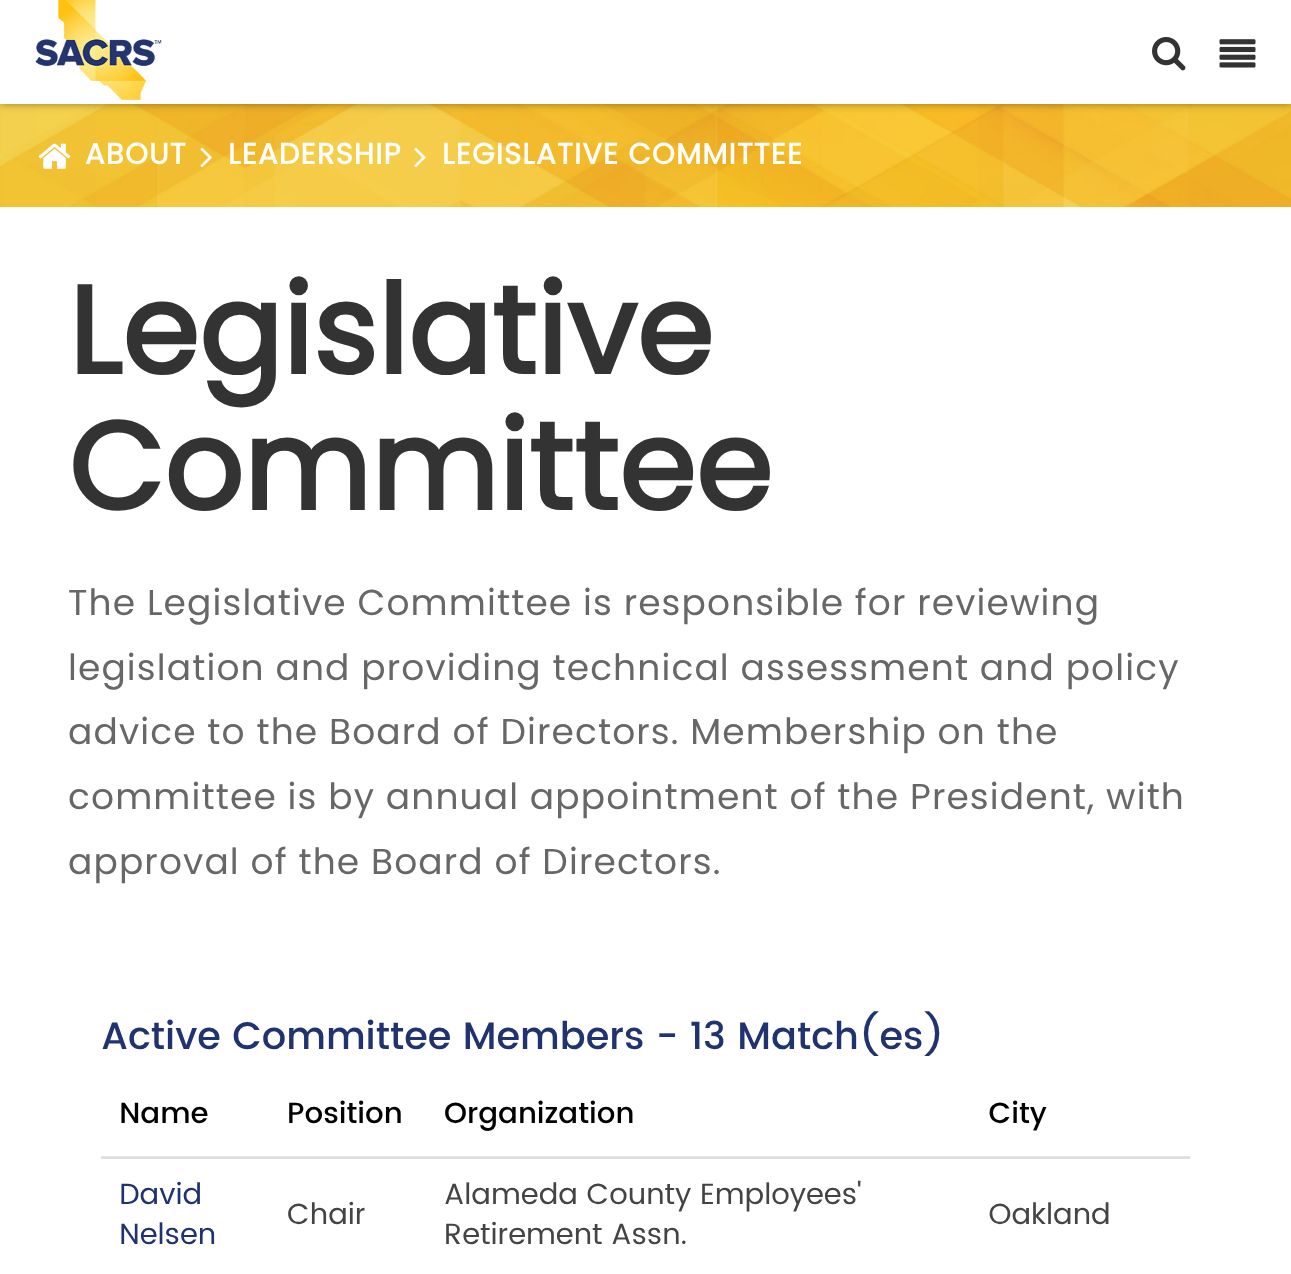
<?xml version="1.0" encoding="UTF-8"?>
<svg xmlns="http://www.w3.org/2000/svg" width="1291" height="1274">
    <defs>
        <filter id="blur1" x="-50%" y="-200%" width="200%" height="500%"><feGaussianBlur stdDeviation="4.5"/></filter>
    </defs>
    <rect width="100%" height="100%" fill="#FFFFFF"/>
    <image x="0" y="104" width="1291" height="103" href="img_04.png"/>
    <rect x="0" y="0" width="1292" height="104" fill="#000000" fill-opacity="0.4" filter="url(#blur1)"/>
    <rect x="0" y="0" width="1291" height="104" fill="#FFFFFF"/>
    <image x="35" y="0" width="127" height="100" href="img_01.png"/>
    <image x="1152" y="37" width="34" height="34" href="img_02.png"/>
    <image x="1219" y="39" width="37" height="29" href="img_03.png"/>
    <image x="38" y="143" width="33" height="26" href="img_05.png"/>
    <text x="85" y="164" font-family="Poppins" font-size="29.25" font-weight="700" letter-spacing="1.12" fill="#FFFFFF">ABOUT</text>
    <image x="200" y="147" width="12" height="21" href="img_06.png"/>
    <text x="228" y="164" font-family="Poppins" font-size="29.25" font-weight="700" letter-spacing="1.12" fill="#FFFFFF">LEADERSHIP</text>
    <image x="414" y="147" width="12" height="21" href="img_07.png"/>
    <text x="442" y="164" font-family="Poppins" font-size="29.25" font-weight="700" letter-spacing="1.12" fill="#FFFFFF">LEGISLATIVE COMMITTEE</text>
    <text font-family="Poppins" font-size="123.75" font-weight="700" fill="#333333">
        <tspan x="68" y="374">Legislative</tspan>
        <tspan x="68" y="510">Committee</tspan>
    </text>
    <text font-family="Poppins" font-size="36" letter-spacing="1.12" fill="#676767">
        <tspan x="68" y="615">The Legislative Committee is responsible for reviewing</tspan>
        <tspan x="68" y="680">legislation and providing technical assessment and policy</tspan>
        <tspan x="68" y="744">advice to the Board of Directors. Membership on the</tspan>
        <tspan x="68" y="809">committee is by annual appointment of the President, with</tspan>
        <tspan x="68" y="874">approval of the Board of Directors.</tspan>
    </text>
    <image x="101" y="1011" width="1090" height="234" href="img_08.png"/>
</svg>
